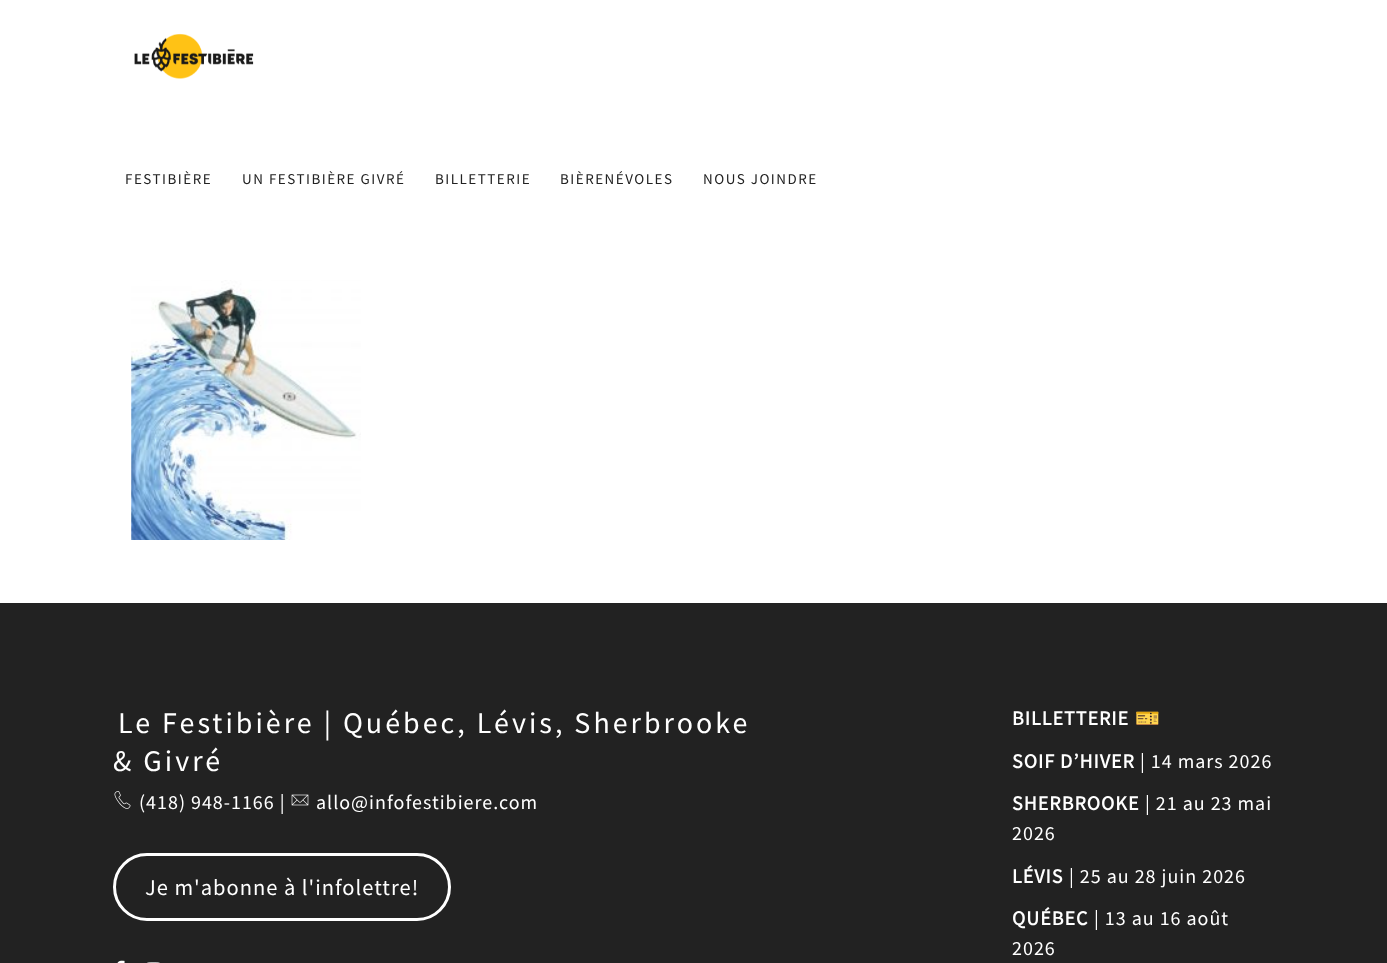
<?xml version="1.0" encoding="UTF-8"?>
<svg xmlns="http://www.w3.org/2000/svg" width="1387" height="963">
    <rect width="100%" height="100%" fill="#FFFFFF"/>
    <image x="134" y="33" width="120" height="46" href="img_01.png"/>
    <text x="125" y="184" font-family="Source Sans Pro" font-size="15" letter-spacing="1.5" fill="#222222">FESTIBIÈRE</text>
    <text x="242" y="184" font-family="Source Sans Pro" font-size="15" letter-spacing="1.5" fill="#222222">UN FESTIBIÈRE GIVRÉ</text>
    <text x="435" y="184" font-family="Source Sans Pro" font-size="15" letter-spacing="1.5" fill="#222222">BILLETTERIE</text>
    <text x="560" y="184" font-family="Source Sans Pro" font-size="15" letter-spacing="1.5" fill="#222222">BIÈRENÉVOLES</text>
    <text x="703" y="184" font-family="Source Sans Pro" font-size="15" letter-spacing="1.5" fill="#222222">NOUS JOINDRE</text>
    <image x="131" y="280" width="230" height="260" href="img_02.png"/>
    <rect x="0" y="603" width="1387" height="360" fill="#222222"/>
    <text x="118" y="733" font-family="Source Sans Pro" font-size="30" letter-spacing="3" fill="#FFFFFF">Le Festibière | Québec, Lévis, Sherbrooke</text>
    <text x="113" y="771" font-family="Source Sans Pro" font-size="30" letter-spacing="3" fill="#FFFFFF">&amp; Givré</text>
    <image x="114" y="791" width="17" height="18" href="img_03.png"/>
    <text x="139" y="809" font-family="Source Sans Pro" font-size="20" letter-spacing="1" fill="#FFFFFF">(418) 948-1166 |</text>
    <image x="291" y="794" width="18" height="12" href="img_04.png"/>
    <text x="316" y="809" font-family="Source Sans Pro" font-size="20" letter-spacing="1" fill="#FFFFFF">allo@infofestibiere.com</text>
    <rect x="114.5" y="854.5" width="335" height="65" rx="32.5" fill="none" stroke="#FFFFFF" stroke-width="3"/>
    <text x="145" y="895" font-family="Source Sans Pro" font-size="22.5" letter-spacing="1" fill="#FFFFFF">Je m'abonne à l'infolettre!</text>
    <image x="117" y="960" width="8" height="3" href="img_05.png"/>
    <image x="147" y="962" width="13" height="1" href="img_06.png"/>
    <text x="1012" y="725" font-family="Source Sans Pro" font-size="20" font-weight="700" letter-spacing="1" fill="#FFFFFF">BILLETTERIE</text>
    <text x="1135" y="725" font-family="Noto Color Emoji" font-size="20" letter-spacing="1" fill="#FFFFFF">🎫</text>
    <text x="1012" y="768" font-family="Source Sans Pro" font-size="20" font-weight="700" letter-spacing="1" fill="#FFFFFF">SOIF D’HIVER</text>
    <text x="1140" y="768" font-family="Source Sans Pro" font-size="20" letter-spacing="1" fill="#FFFFFF">| 14 mars 2026</text>
    <text x="1012" y="810" font-family="Source Sans Pro" font-size="20" font-weight="700" letter-spacing="1" fill="#FFFFFF">SHERBROOKE</text>
    <text x="1145" y="810" font-family="Source Sans Pro" font-size="20" letter-spacing="1" fill="#FFFFFF">| 21 au 23 mai</text>
    <text x="1012" y="840" font-family="Source Sans Pro" font-size="20" letter-spacing="1" fill="#FFFFFF">2026</text>
    <text x="1012" y="883" font-family="Source Sans Pro" font-size="20" font-weight="700" letter-spacing="1" fill="#FFFFFF">LÉVIS</text>
    <text x="1069" y="883" font-family="Source Sans Pro" font-size="20" letter-spacing="1" fill="#FFFFFF">| 25 au 28 juin 2026</text>
    <text x="1012" y="925" font-family="Source Sans Pro" font-size="20" font-weight="700" letter-spacing="1" fill="#FFFFFF">QUÉBEC</text>
    <text x="1094" y="925" font-family="Source Sans Pro" font-size="20" letter-spacing="1" fill="#FFFFFF">| 13 au 16 août</text>
    <text x="1012" y="955" font-family="Source Sans Pro" font-size="20" letter-spacing="1" fill="#FFFFFF">2026</text>
</svg>
